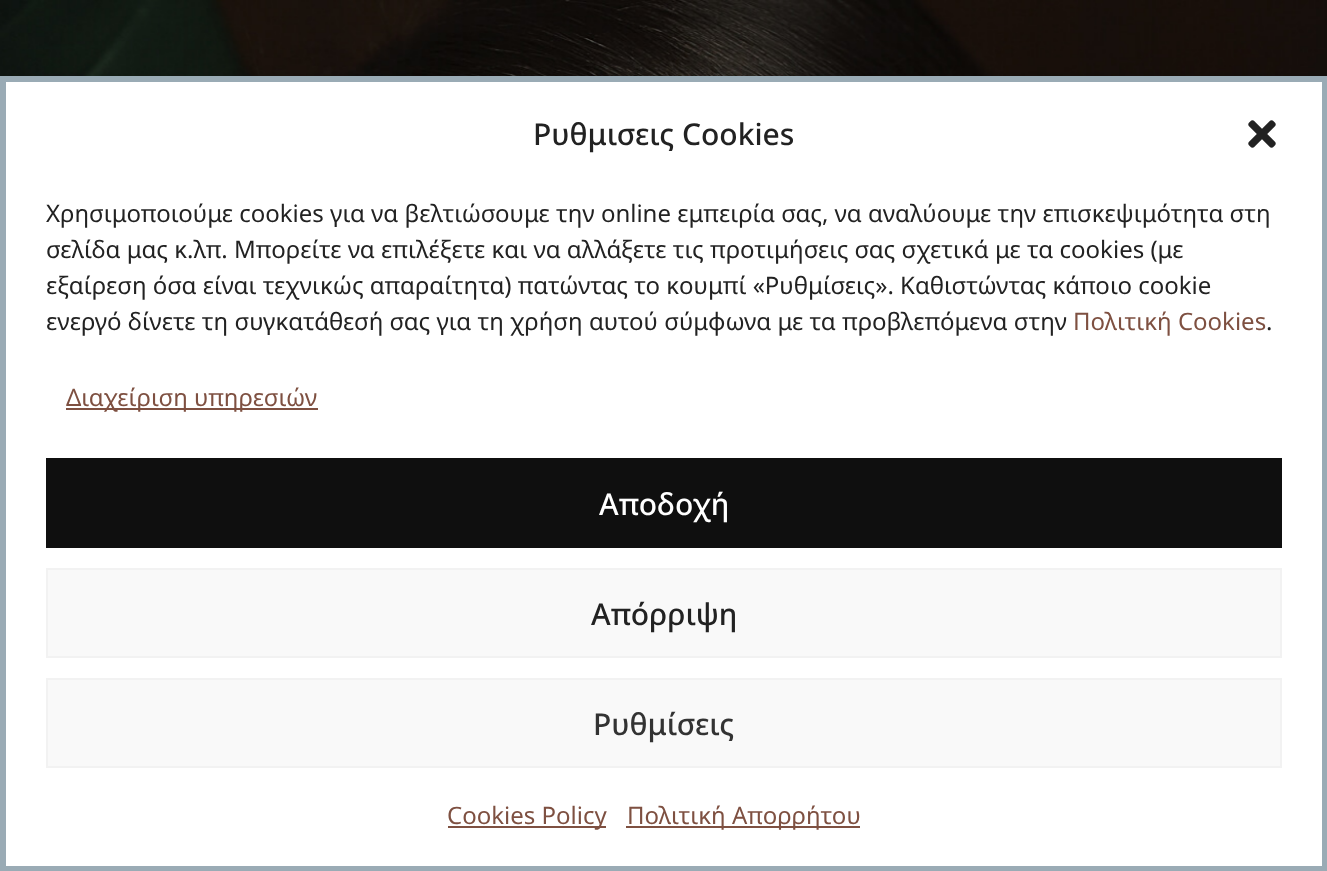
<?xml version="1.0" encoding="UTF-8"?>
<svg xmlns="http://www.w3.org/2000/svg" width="1327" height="871">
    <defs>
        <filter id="blur1" x="-50%" y="-200%" width="200%" height="500%"><feGaussianBlur stdDeviation="20"/></filter>
    </defs>
    <rect width="100%" height="100%" fill="#FFFFFF"/>
    <image x="0" y="0" width="1327" height="76" href="img_01.png"/>
    <rect x="0" y="96" width="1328" height="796" fill="#000000" fill-opacity="0.19" filter="url(#blur1)"/>
    <rect x="3" y="79" width="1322" height="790" fill="#FFFFFF" stroke="#9AABB5" stroke-width="6"/>
    <text x="533" y="145" font-family="Noto Sans" font-size="30" font-weight="500" fill="#222222">Ρυθμισεις Cookies</text>
    <image x="1248" y="120" width="28" height="28" href="img_02.png"/>
    <text font-family="Noto Sans" font-size="24" fill="#222222">
        <tspan x="46" y="222">Χρησιμοποιούμε cookies για να βελτιώσουμε την online εμπειρία σας, να αναλύουμε την επισκεψιμότητα στη</tspan>
        <tspan x="46" y="258">σελίδα μας κ.λπ. Μπορείτε να επιλέξετε και να αλλάξετε τις προτιμήσεις σας σχετικά με τα cookies (με</tspan>
        <tspan x="46" y="294">εξαίρεση όσα είναι τεχνικώς απαραίτητα) πατώντας το κουμπί «Ρυθμίσεις». Καθιστώντας κάποιο cookie</tspan>
        <tspan x="46" y="330">ενεργό δίνετε τη συγκατάθεσή σας για τη χρήση αυτού σύμφωνα με τα προβλεπόμενα στην</tspan>
    </text>
    <text x="1073" y="330" font-family="Noto Sans" font-size="24" fill="#7E5041">Πολιτική Cookies</text>
    <text x="1266" y="330" font-family="Noto Sans" font-size="24" fill="#222222">.</text>
    <rect x="66" y="408" width="252" height="2" fill="#7E5041"/>
    <text x="66" y="406" font-family="Noto Sans" font-size="24" fill="#7E5041">Διαχείριση υπηρεσιών</text>
    <rect x="46" y="458" width="1236" height="90" fill="#0F0F0F"/>
    <text x="599" y="515" font-family="Noto Sans" font-size="30" font-weight="500" fill="#FFFFFF">Αποδοχή</text>
    <rect x="47" y="569" width="1234" height="88" fill="#F9F9F9" stroke="#F2F2F2" stroke-width="2"/>
    <text x="591" y="625" font-family="Noto Sans" font-size="30" font-weight="500" fill="#222222">Απόρριψη</text>
    <rect x="47" y="679" width="1234" height="88" fill="#F9F9F9" stroke="#F2F2F2" stroke-width="2"/>
    <text x="593" y="735" font-family="Noto Sans" font-size="30" font-weight="500" fill="#333333">Ρυθμίσεις</text>
    <rect x="448" y="826" width="158" height="2" fill="#7E5041"/>
    <text x="447" y="824" font-family="Noto Sans" font-size="24" fill="#7E5041">Cookies Policy</text>
    <rect x="626" y="826" width="234" height="2" fill="#7E5041"/>
    <text x="627" y="824" font-family="Noto Sans" font-size="24" fill="#7E5041">Πολιτική Απορρήτου</text>
</svg>
